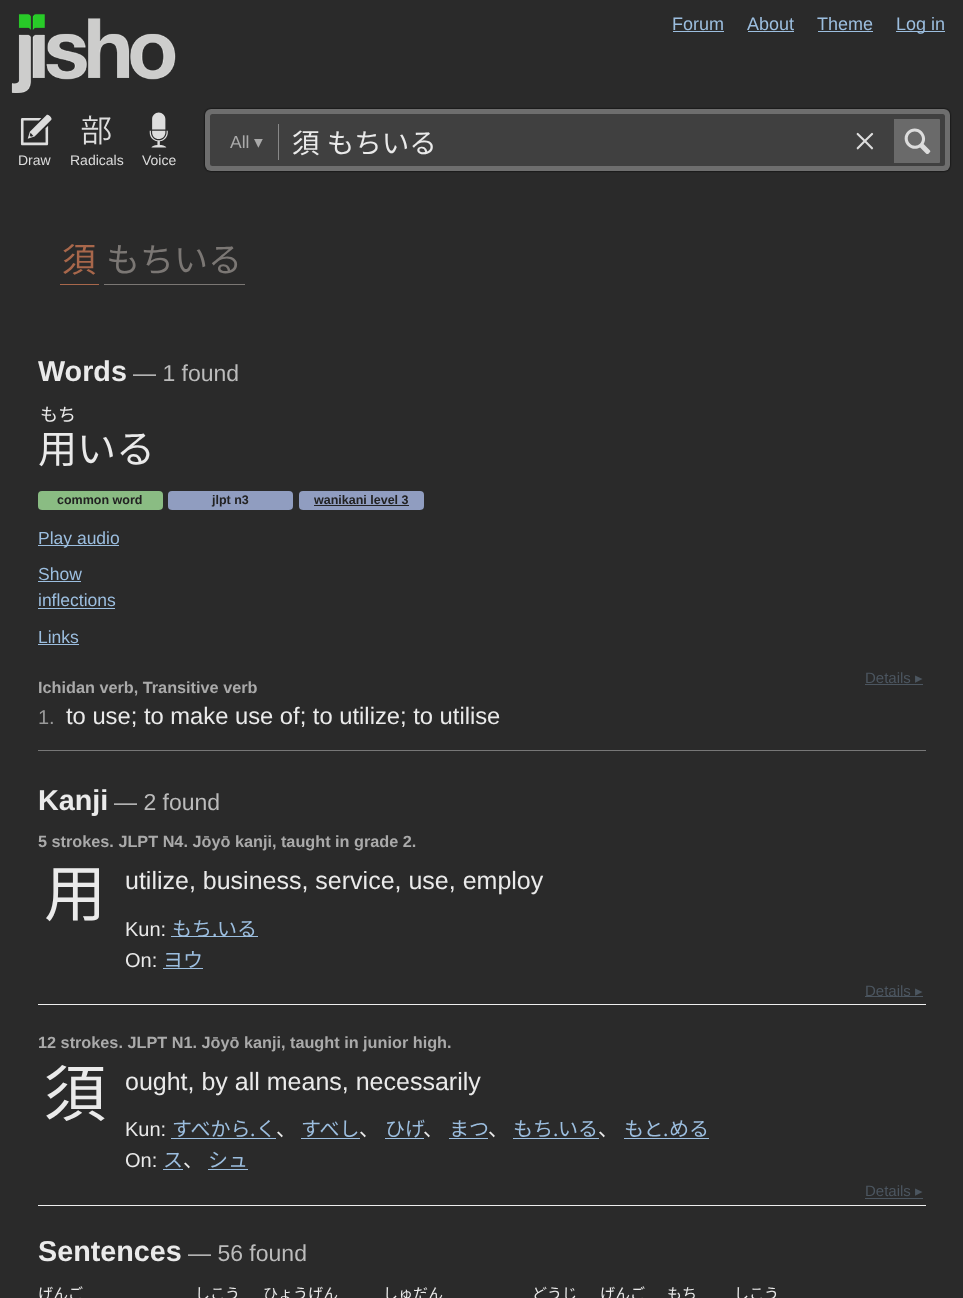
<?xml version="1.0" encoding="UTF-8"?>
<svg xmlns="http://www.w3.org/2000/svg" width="963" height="1298">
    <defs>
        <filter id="blur1" x="-50%" y="-200%" width="200%" height="500%"><feGaussianBlur stdDeviation="1"/></filter>
    </defs>
    <rect width="100%" height="100%" fill="#2A2A2A"/>
    <image x="11" y="13" width="165" height="80" href="img_01.png"/>
    <text x="672" y="30" font-family="Liberation Sans" font-size="18" fill="#9CBEDF">Forum</text>
    <rect x="673" y="31" width="51" height="1" fill="#9CBEDF"/>
    <text x="747" y="30" font-family="Liberation Sans" font-size="18" fill="#9CBEDF">About</text>
    <rect x="748" y="31" width="46" height="1" fill="#9CBEDF"/>
    <text x="817" y="30" font-family="Liberation Sans" font-size="18" fill="#9CBEDF">Theme</text>
    <rect x="818" y="31" width="55" height="1" fill="#9CBEDF"/>
    <rect x="896" y="31" width="49" height="1" fill="#9CBEDF"/>
    <text x="896" y="30" font-family="Liberation Sans" font-size="18" fill="#9CBEDF">Log in</text>
    <rect x="205" y="109" width="745" height="62" rx="6" fill="#000000" filter="url(#blur1)"/>
    <rect x="205" y="109" width="745" height="62" rx="6" fill="#6E6E6E"/>
    <rect x="210" y="114" width="735" height="52" rx="2.5" fill="#404040"/>
    <rect x="278" y="124" width="1" height="36" fill="#888888"/>
    <text x="230" y="148" font-family="Liberation Sans" font-size="17.5" fill="#AAAAAA">All</text>
    <text x="254" y="148" font-family="DejaVu Sans" font-size="17.5" fill="#AAAAAA">▾</text>
    <text x="292" y="153" word-spacing="1" font-family="Noto Sans CJK JP" font-size="27.5" fill="#EAEAEA">須 もちいる</text>
    <image x="856" y="132" width="18" height="18" href="img_02.png"/>
    <path d="M 894 119 H 939 C 939.5 119 940 119.5 940 120 V 162 C 940 162.5 939.5 163 939 163 H 894 Z" fill="#6A6A6A"/>
    <image x="904" y="128" width="27" height="26" href="img_03.png"/>
    <image x="20" y="114" width="32" height="32" href="img_04.png"/>
    <text x="18" y="165" font-family="Liberation Sans" font-size="14" fill="#DDDDDD">Draw</text>
    <image x="81" y="115" width="30" height="30" href="img_05.png"/>
    <text x="70" y="165" font-family="Liberation Sans" font-size="14" fill="#DDDDDD">Radicals</text>
    <image x="149" y="112" width="19" height="36" href="img_06.png"/>
    <text x="142" y="165" font-family="Liberation Sans" font-size="14" fill="#DDDDDD">Voice</text>
    <text x="62" y="272" font-family="Noto Sans CJK JP" font-size="34" fill="#A8674B">須</text>
    <rect x="60" y="284" width="39" height="1" fill="#A8674B"/>
    <text x="106" y="272" font-family="Noto Sans CJK JP" font-size="34" fill="#7B7774">もちいる</text>
    <rect x="104" y="284" width="141" height="1" fill="#7B7774"/>
    <text x="38" y="381" font-family="Liberation Sans" font-size="28.75" font-weight="700" fill="#EAEAEA">Words</text>
    <text x="133" y="381" font-family="Liberation Sans" font-size="23" fill="#BBBBBB">— 1 found</text>
    <rect x="38" y="750" width="888" height="1" fill="#777777"/>
    <text x="40" y="421" font-family="Noto Sans CJK JP" font-size="18" fill="#EAEAEA">もち</text>
    <text x="38" y="463" font-family="Noto Sans CJK JP" font-size="39" fill="#EAEAEA">用いる</text>
    <rect x="38" y="491" width="125" height="19" rx="4" fill="#8ABC83"/>
    <text x="57" y="504" font-family="Liberation Sans" font-size="12.5" font-weight="700" fill="#222222">common word</text>
    <rect x="168" y="491" width="125" height="19" rx="4" fill="#909DC0"/>
    <text x="212" y="504" font-family="Liberation Sans" font-size="12.5" font-weight="700" fill="#222222">jlpt n3</text>
    <rect x="299" y="491" width="125" height="19" rx="4" fill="#909DC0"/>
    <text x="314" y="504" font-family="Liberation Sans" font-size="12.5" font-weight="700" fill="#222222">wanikani level 3</text>
    <rect x="314" y="505" width="95" height="1" fill="#222222"/>
    <rect x="38" y="545" width="81" height="1" fill="#9CBEDF"/>
    <text x="38" y="544" font-family="Liberation Sans" font-size="17.5" fill="#9CBEDF">Play audio</text>
    <text x="38" y="580" font-family="Liberation Sans" font-size="17.5" fill="#9CBEDF">Show</text>
    <rect x="38" y="581" width="43" height="1" fill="#9CBEDF"/>
    <text x="38" y="606" font-family="Liberation Sans" font-size="17.5" fill="#9CBEDF">inflections</text>
    <rect x="38" y="608" width="77" height="1" fill="#9CBEDF"/>
    <text x="38" y="643" font-family="Liberation Sans" font-size="17.5" fill="#9CBEDF">Links</text>
    <rect x="38" y="644" width="41" height="1" fill="#9CBEDF"/>
    <text x="865" y="683" font-family="Liberation Sans" font-size="15" fill="#4C5660">Details</text>
    <text x="915" y="683" font-family="DejaVu Sans" font-size="15" fill="#4C5660">▸</text>
    <rect x="865" y="684" width="58" height="1" fill="#4C5660"/>
    <text x="38" y="693" font-family="Liberation Sans" font-size="16.25" font-weight="700" fill="#AAAAAA">Ichidan verb, Transitive verb</text>
    <text x="38" y="724" font-family="Liberation Sans" font-size="20" fill="#999999">1.</text>
    <text x="66" y="724" font-family="Liberation Sans" font-size="23.75" fill="#EAEAEA">to use; to make use of; to utilize; to utilise</text>
    <text x="38" y="810" font-family="Liberation Sans" font-size="28.75" font-weight="700" fill="#EAEAEA">Kanji</text>
    <text x="114" y="810" font-family="Liberation Sans" font-size="23" fill="#BBBBBB">— 2 found</text>
    <rect x="38" y="1004" width="888" height="1" fill="#EEEEEE"/>
    <text x="38" y="847" font-family="Liberation Sans" font-size="16.25" font-weight="700" fill="#AAAAAA">5 strokes. JLPT N4. Jōyō kanji, taught in grade 2.</text>
    <text x="44" y="916" font-family="Noto Sans CJK JP" font-size="62" fill="#EAEAEA">用</text>
    <text x="125" y="889" font-family="Liberation Sans" font-size="25" fill="#EAEAEA">utilize, business, service, use, employ</text>
    <text x="125" y="936" font-family="Liberation Sans" font-size="20" fill="#EAEAEA">Kun:</text>
    <rect x="171" y="936" width="87" height="1" fill="#9CBEDF"/>
    <text x="172" y="936" font-family="Noto Sans CJK JP" font-size="20" fill="#9CBEDF">もち</text>
    <text x="212" y="936" font-family="Noto Sans" font-size="20" fill="#9CBEDF">.</text>
    <text x="217" y="936" font-family="Noto Sans CJK JP" font-size="20" fill="#9CBEDF">いる</text>
    <text x="125" y="967" font-family="Liberation Sans" font-size="20" fill="#EAEAEA">On:</text>
    <text x="163" y="967" font-family="Noto Sans CJK JP" font-size="20" fill="#9CBEDF">ヨウ</text>
    <rect x="163" y="968" width="40" height="1" fill="#9CBEDF"/>
    <rect x="865" y="996" width="58" height="1" fill="#4C5660"/>
    <text x="865" y="996" font-family="Liberation Sans" font-size="15" fill="#4C5660">Details</text>
    <text x="915" y="996" font-family="DejaVu Sans" font-size="15" fill="#4C5660">▸</text>
    <rect x="38" y="1205" width="888" height="1" fill="#EEEEEE"/>
    <text x="38" y="1048" font-family="Liberation Sans" font-size="16.25" font-weight="700" fill="#AAAAAA">12 strokes. JLPT N1. Jōyō kanji, taught in junior high.</text>
    <text x="44" y="1116" font-family="Noto Sans CJK JP" font-size="62" fill="#EAEAEA">須</text>
    <text x="125" y="1090" font-family="Liberation Sans" font-size="25" fill="#EAEAEA">ought, by all means, necessarily</text>
    <text x="125" y="1136" font-family="Liberation Sans" font-size="20" fill="#EAEAEA">Kun:</text>
    <text x="172" y="1136" font-family="Noto Sans CJK JP" font-size="20" fill="#9CBEDF">すべから</text>
    <text x="250" y="1136" font-family="Noto Sans" font-size="20" fill="#9CBEDF">.</text>
    <rect x="171" y="1138" width="105" height="1" fill="#9CBEDF"/>
    <text x="256" y="1136" font-family="Noto Sans CJK JP" font-size="20" fill="#9CBEDF">く</text>
    <text x="276" y="1136" font-family="Noto Sans CJK JP" font-size="20" fill="#EAEAEA">、</text>
    <text x="301" y="1136" font-family="Noto Sans CJK JP" font-size="20" fill="#9CBEDF">すべし</text>
    <text x="359" y="1136" font-family="Noto Sans CJK JP" font-size="20" fill="#EAEAEA">、</text>
    <rect x="301" y="1138" width="59" height="1" fill="#9CBEDF"/>
    <text x="385" y="1136" font-family="Noto Sans CJK JP" font-size="20" fill="#9CBEDF">ひげ</text>
    <text x="423" y="1136" font-family="Noto Sans CJK JP" font-size="20" fill="#EAEAEA">、</text>
    <rect x="385" y="1138" width="39" height="1" fill="#9CBEDF"/>
    <text x="449" y="1136" font-family="Noto Sans CJK JP" font-size="20" fill="#9CBEDF">まつ</text>
    <text x="488" y="1136" font-family="Noto Sans CJK JP" font-size="20" fill="#EAEAEA">、</text>
    <rect x="449" y="1138" width="39" height="1" fill="#9CBEDF"/>
    <text x="513" y="1136" font-family="Noto Sans CJK JP" font-size="20" fill="#9CBEDF">もち</text>
    <text x="553" y="1136" font-family="Noto Sans" font-size="20" fill="#9CBEDF">.</text>
    <rect x="513" y="1138" width="86" height="1" fill="#9CBEDF"/>
    <text x="558" y="1136" font-family="Noto Sans CJK JP" font-size="20" fill="#9CBEDF">いる</text>
    <text x="598" y="1136" font-family="Noto Sans CJK JP" font-size="20" fill="#EAEAEA">、</text>
    <text x="624" y="1136" font-family="Noto Sans CJK JP" font-size="20" fill="#9CBEDF">もと</text>
    <text x="663" y="1136" font-family="Noto Sans" font-size="20" fill="#9CBEDF">.</text>
    <rect x="624" y="1138" width="85" height="1" fill="#9CBEDF"/>
    <text x="669" y="1136" font-family="Noto Sans CJK JP" font-size="20" fill="#9CBEDF">める</text>
    <text x="125" y="1167" font-family="Liberation Sans" font-size="20" fill="#EAEAEA">On:</text>
    <text x="163" y="1167" font-family="Noto Sans CJK JP" font-size="20" fill="#9CBEDF">ス</text>
    <text x="183" y="1167" font-family="Noto Sans CJK JP" font-size="20" fill="#EAEAEA">、</text>
    <rect x="163" y="1169" width="20" height="1" fill="#9CBEDF"/>
    <text x="208" y="1167" font-family="Noto Sans CJK JP" font-size="20" fill="#9CBEDF">シュ</text>
    <rect x="208" y="1169" width="40" height="1" fill="#9CBEDF"/>
    <text x="865" y="1196" font-family="Liberation Sans" font-size="15" fill="#4C5660">Details</text>
    <text x="915" y="1196" font-family="DejaVu Sans" font-size="15" fill="#4C5660">▸</text>
    <rect x="865" y="1198" width="58" height="1" fill="#4C5660"/>
    <text x="38" y="1261" font-family="Liberation Sans" font-size="28.75" font-weight="700" fill="#EAEAEA">Sentences</text>
    <text x="188" y="1261" font-family="Liberation Sans" font-size="23" fill="#BBBBBB">— 56 found</text>
    <text x="38" y="1299" font-family="Noto Sans CJK JP" font-size="15" fill="#EAEAEA">げんご</text>
    <text x="195" y="1299" font-family="Noto Sans CJK JP" font-size="15" fill="#EAEAEA">しこう</text>
    <text x="263" y="1299" font-family="Noto Sans CJK JP" font-size="15" fill="#EAEAEA">ひょうげん</text>
    <text x="383" y="1299" font-family="Noto Sans CJK JP" font-size="15" fill="#EAEAEA">しゅだん</text>
    <text x="532" y="1299" font-family="Noto Sans CJK JP" font-size="15" fill="#EAEAEA">どうじ</text>
    <text x="600" y="1299" font-family="Noto Sans CJK JP" font-size="15" fill="#EAEAEA">げんご</text>
    <text x="667" y="1299" font-family="Noto Sans CJK JP" font-size="15" fill="#EAEAEA">もち</text>
    <text x="734" y="1299" font-family="Noto Sans CJK JP" font-size="15" fill="#EAEAEA">しこう</text>
</svg>
